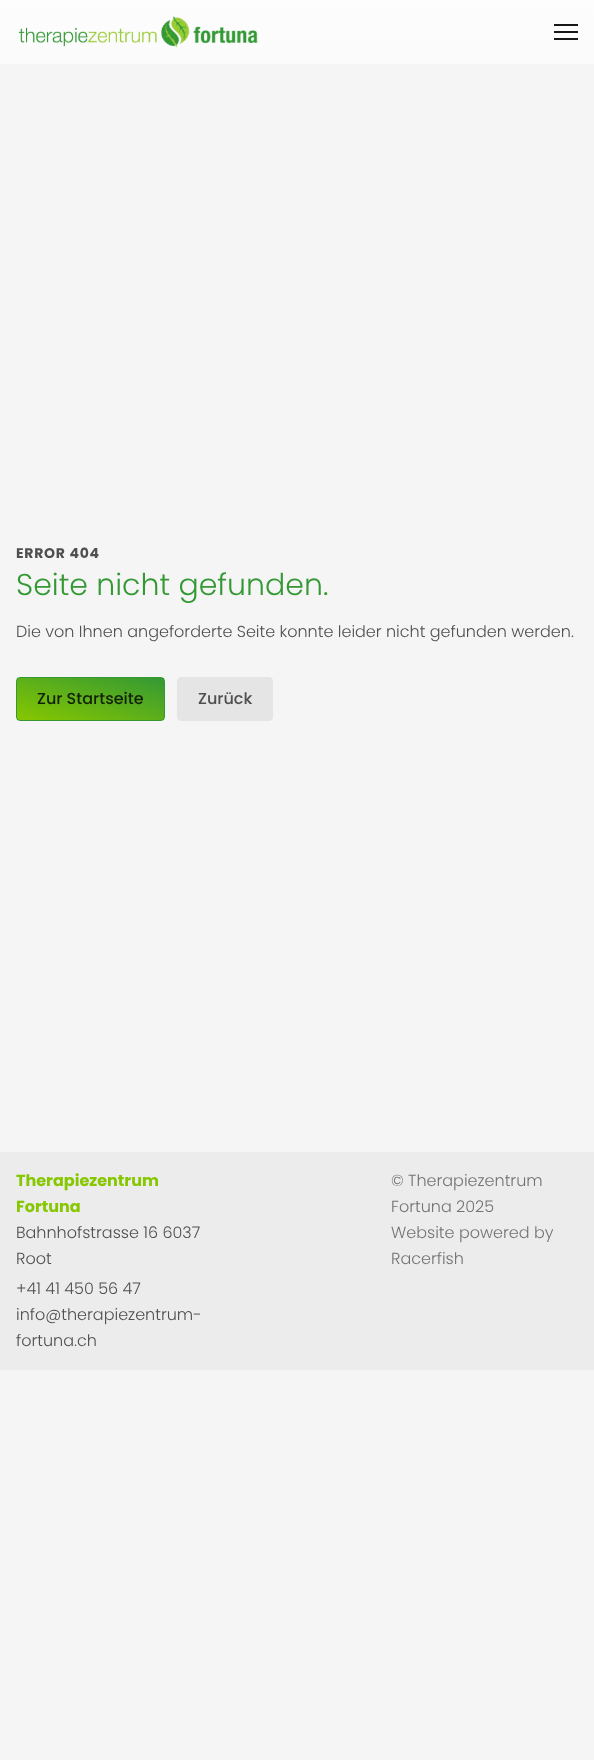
<?xml version="1.0" encoding="UTF-8"?>
<svg xmlns="http://www.w3.org/2000/svg" width="594" height="1760">
    <defs>
        <linearGradient id="g1" gradientUnits="userSpaceOnUse" x1="297" y1="0" x2="297" y2="64"><stop offset="0" stop-color="#FDFDFD"/><stop offset="1" stop-color="#FBFBFB"/></linearGradient>
        <clipPath id="clip1"><rect x="16" y="677" width="149" height="44" rx="4"/></clipPath>
        <linearGradient id="g2" gradientUnits="userSpaceOnUse" x1="79" y1="738" x2="102" y2="660"><stop offset="0" stop-color="#87C700"/><stop offset="1" stop-color="#349934"/></linearGradient>
    </defs>
    <rect width="100%" height="100%" fill="#F5F5F5"/>
    <rect x="0" y="0" width="594" height="64" fill="url(#g1)"/>
    <image x="18" y="16" width="240" height="32" href="img_01.png"/>
    <rect x="554" y="24" width="24" height="2" fill="#171717"/>
    <rect x="554" y="31" width="24" height="2" fill="#171717"/>
    <rect x="554" y="38" width="24" height="2" fill="#171717"/>
    <text x="16" y="558" font-family="Poppins" font-size="14" font-weight="700" letter-spacing="0.75" fill="#4F4F4F">ERROR 404</text>
    <text x="16" y="595" font-family="Poppins" font-size="30" font-weight="300" fill="#349934">Seite nicht gefunden.</text>
    <text x="16" y="637" font-family="Poppins" font-size="16" font-weight="300" fill="#4F4F4F">Die von Ihnen angeforderte Seite konnte leider nicht gefunden werden.</text>
    <g clip-path="url(#clip1)">
        <rect x="17" y="678" width="147" height="42" fill="url(#g2)"/>
    </g>
    <rect x="16.5" y="677.5" width="148" height="43" rx="3.5" fill="none" stroke="#349934"/>
    <text x="37" y="704" font-family="Poppins" font-size="16" font-weight="500" fill="#132305">Zur Startseite</text>
    <rect x="177.5" y="677.5" width="95" height="43" rx="3.5" fill="#E5E5E5" stroke="#E5E5E5"/>
    <text x="198" y="704" font-family="Poppins" font-size="16" font-weight="500" fill="#4F4F4F">Zurück</text>
    <rect x="0" y="1152" width="594" height="218" fill="#ECECEC"/>
    <text font-family="Poppins" font-size="16" font-weight="700" fill="#87C700">
        <tspan x="16" y="1186">Therapiezentrum</tspan>
        <tspan x="16" y="1212">Fortuna</tspan>
    </text>
    <text font-family="Poppins" font-size="16" font-weight="300" fill="#4F4F4F">
        <tspan x="16" y="1238">Bahnhofstrasse 16 6037</tspan>
        <tspan x="16" y="1264">Root</tspan>
        <tspan x="16" y="1294">+41 41 450 56 47</tspan>
        <tspan x="16" y="1320">info@therapiezentrum-</tspan>
        <tspan x="16" y="1346">fortuna.ch</tspan>
    </text>
    <text font-family="Poppins" font-size="16" font-weight="300" fill="#737373">
        <tspan x="391" y="1186">© Therapiezentrum</tspan>
        <tspan x="391" y="1212">Fortuna 2025</tspan>
        <tspan x="391" y="1238">Website powered by</tspan>
        <tspan x="391" y="1264">Racerfish</tspan>
    </text>
</svg>
